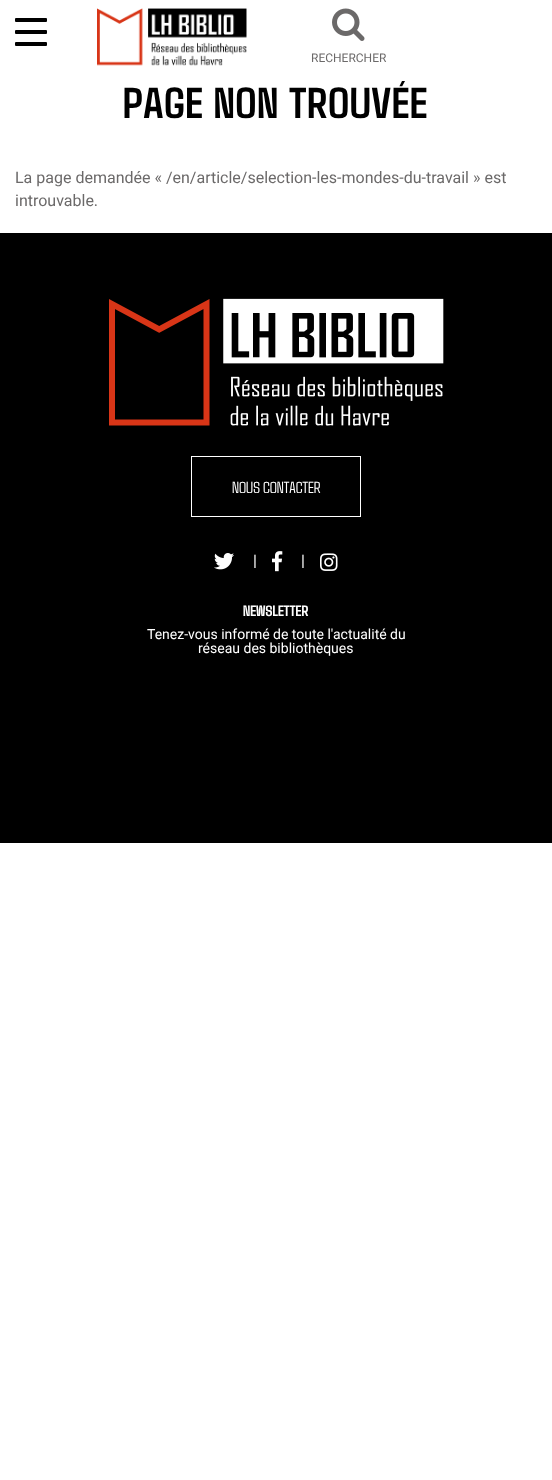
<?xml version="1.0" encoding="UTF-8"?>
<svg xmlns="http://www.w3.org/2000/svg" width="552" height="1480">
    <rect width="100%" height="100%" fill="#FFFFFF"/>
    <rect x="15" y="18" width="32" height="4" rx="1" fill="#000000"/>
    <rect x="15" y="30" width="32" height="4" rx="1" fill="#000000"/>
    <rect x="15" y="42" width="32" height="4" rx="1" fill="#000000"/>
    <image x="97" y="8" width="150" height="58" href="img_01.png"/>
    <image x="332" y="8" width="33" height="33" href="img_02.png"/>
    <text x="311" y="62" font-family="Roboto" font-size="12" fill="#6B6969">RECHERCHER</text>
    <text x="123" y="118" font-family="Agdasima" font-size="43.5" font-weight="700" letter-spacing="1" fill="#000000">PAGE NON TROUVÉE</text>
    <text font-family="Roboto" font-size="16" fill="#6B6969">
        <tspan x="15" y="183">La page demandée « /en/article/selection-les-mondes-du-travail » est</tspan>
        <tspan x="15" y="206">introuvable.</tspan>
    </text>
    <rect x="0" y="233" width="552" height="610" fill="#000000"/>
    <image x="109" y="298" width="335" height="128" href="img_03.png"/>
    <rect x="191.5" y="456.5" width="169" height="60" fill="none" stroke="#FFFFFF"/>
    <text x="232" y="493" font-family="Agdasima" font-size="16" fill="#FFFFFF">NOUS CONTACTER</text>
    <image x="214" y="553" width="20" height="17" href="img_04.png"/>
    <text x="253" y="566" font-family="Roboto" font-size="16" fill="#FFFFFF">|</text>
    <image x="272" y="551" width="11" height="21" href="img_05.png"/>
    <text x="301" y="566" font-family="Roboto" font-size="16" fill="#FFFFFF">|</text>
    <image x="320" y="553" width="18" height="18" href="img_06.png"/>
    <text x="243" y="616" font-family="Agdasima" font-size="15" font-weight="700" fill="#FFFFFF">NEWSLETTER</text>
    <text x="147" y="639" font-family="Roboto" font-size="14" fill="#FFFFFF">Tenez-vous informé de toute l'actualité du</text>
    <text x="198" y="653" font-family="Roboto" font-size="14" fill="#FFFFFF">réseau des bibliothèques</text>
</svg>
